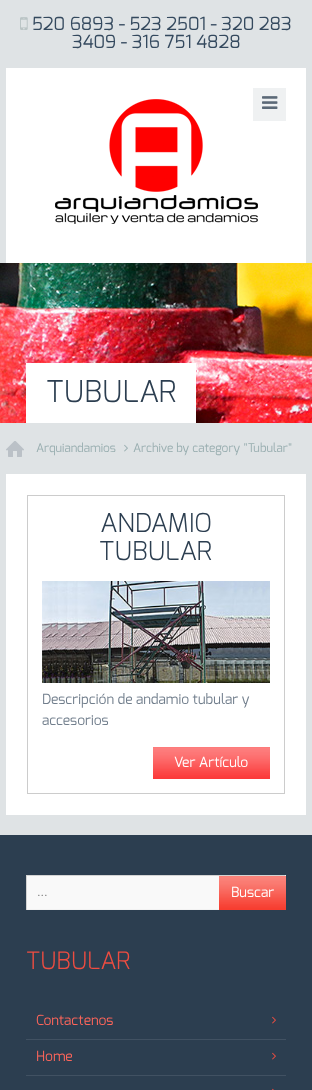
<?xml version="1.0" encoding="UTF-8"?>
<svg xmlns="http://www.w3.org/2000/svg" width="312" height="1090">
    <rect width="100%" height="100%" fill="#DFE3E5"/>
    <image x="20" y="17" width="8" height="13" href="img_01.png"/>
    <text x="32" y="30" font-family="Exo" font-size="18" fill="#34495E">520 6893 - 523 2501 - 320 283</text>
    <text x="72" y="48" font-family="Exo" font-size="18" fill="#34495E">3409 - 316 751 4828</text>
    <rect x="6" y="68" width="300" height="195" fill="#FFFFFF"/>
    <image x="55" y="99" width="203" height="125" href="img_02.png"/>
    <rect x="253" y="88" width="33" height="33" fill="#EFF1F2"/>
    <image x="262" y="96" width="16" height="13" href="img_03.png"/>
    <image x="0" y="263" width="312" height="160" href="img_04.png"/>
    <rect x="26" y="363" width="170" height="60" fill="#FFFFFF"/>
    <text x="46" y="402" font-family="Exo" font-size="30" font-weight="300" fill="#2C3E50">TUBULAR</text>
    <image x="6" y="441" width="18" height="16" href="img_05.png"/>
    <text x="36" y="452" font-family="Exo" font-size="12" fill="#99AEB0">Arquiandamios</text>
    <image x="124" y="444" width="4" height="8" href="img_06.png"/>
    <text x="133" y="452" font-family="Exo" font-size="12" fill="#99AEB0">Archive by category "Tubular"</text>
    <rect x="6" y="474" width="300" height="341" fill="#FFFFFF"/>
    <rect x="27.5" y="495.5" width="257" height="298" fill="none" stroke="#CCCCCC"/>
    <text x="100" y="532" font-family="Exo" font-size="26" font-weight="300" fill="#2C3E50">ANDAMIO</text>
    <text x="99" y="560" font-family="Exo" font-size="26" font-weight="300" fill="#2C3E50">TUBULAR</text>
    <image x="42" y="581" width="228" height="102" href="img_07.png"/>
    <text font-family="Exo" font-size="14" fill="#717E8C">
        <tspan x="42" y="704">Descripción de andamio tubular y</tspan>
        <tspan x="42" y="725">accesorios</tspan>
    </text>
    <rect x="153" y="747" width="117" height="32" fill="#FC2A2A"/>
    <image x="153" y="747" width="117" height="32" href="img_08.png"/>
    <text x="174" y="767" font-family="Exo" font-size="14" fill="#FFFFFF">Ver Artículo</text>
    <rect x="0" y="835" width="312" height="255" fill="#2C3E50"/>
    <rect x="27" y="876" width="192" height="33" fill="#F9F9F9"/>
    <rect x="26" y="875" width="260" height="1" fill="#D3D3D3"/>
    <rect x="285" y="875" width="1" height="1" fill="#F2F2F2"/>
    <rect x="26" y="909" width="193" height="1" fill="#F2F2F2"/>
    <rect x="26" y="875" width="1" height="35" fill="#D3D3D3"/>
    <text x="37" y="896" font-family="Exo" font-size="13" fill="#8C8C8C">...</text>
    <rect x="219" y="876" width="67" height="34" fill="#F73224"/>
    <image x="219" y="876" width="67" height="34" href="img_09.png"/>
    <text x="231" y="897" font-family="Exo" font-size="14" fill="#FFFFFF">Buscar</text>
    <text x="26" y="969" font-family="Exo" font-size="24" font-weight="300" fill="#EF4D41">TUBULAR</text>
    <rect x="26" y="1039" width="260" height="1" fill="#415162"/>
    <text x="36" y="1025" font-family="Exo" font-size="14" fill="#FF665B">Contactenos</text>
    <image x="272" y="1016" width="4" height="8" href="img_10.png"/>
    <rect x="26" y="1075" width="260" height="1" fill="#415162"/>
    <text x="36" y="1061" font-family="Exo" font-size="14" fill="#FF665B">Home</text>
    <image x="272" y="1052" width="4" height="8" href="img_10.png"/>
    <image x="272" y="1088" width="2" height="2" href="img_11.png"/>
</svg>
